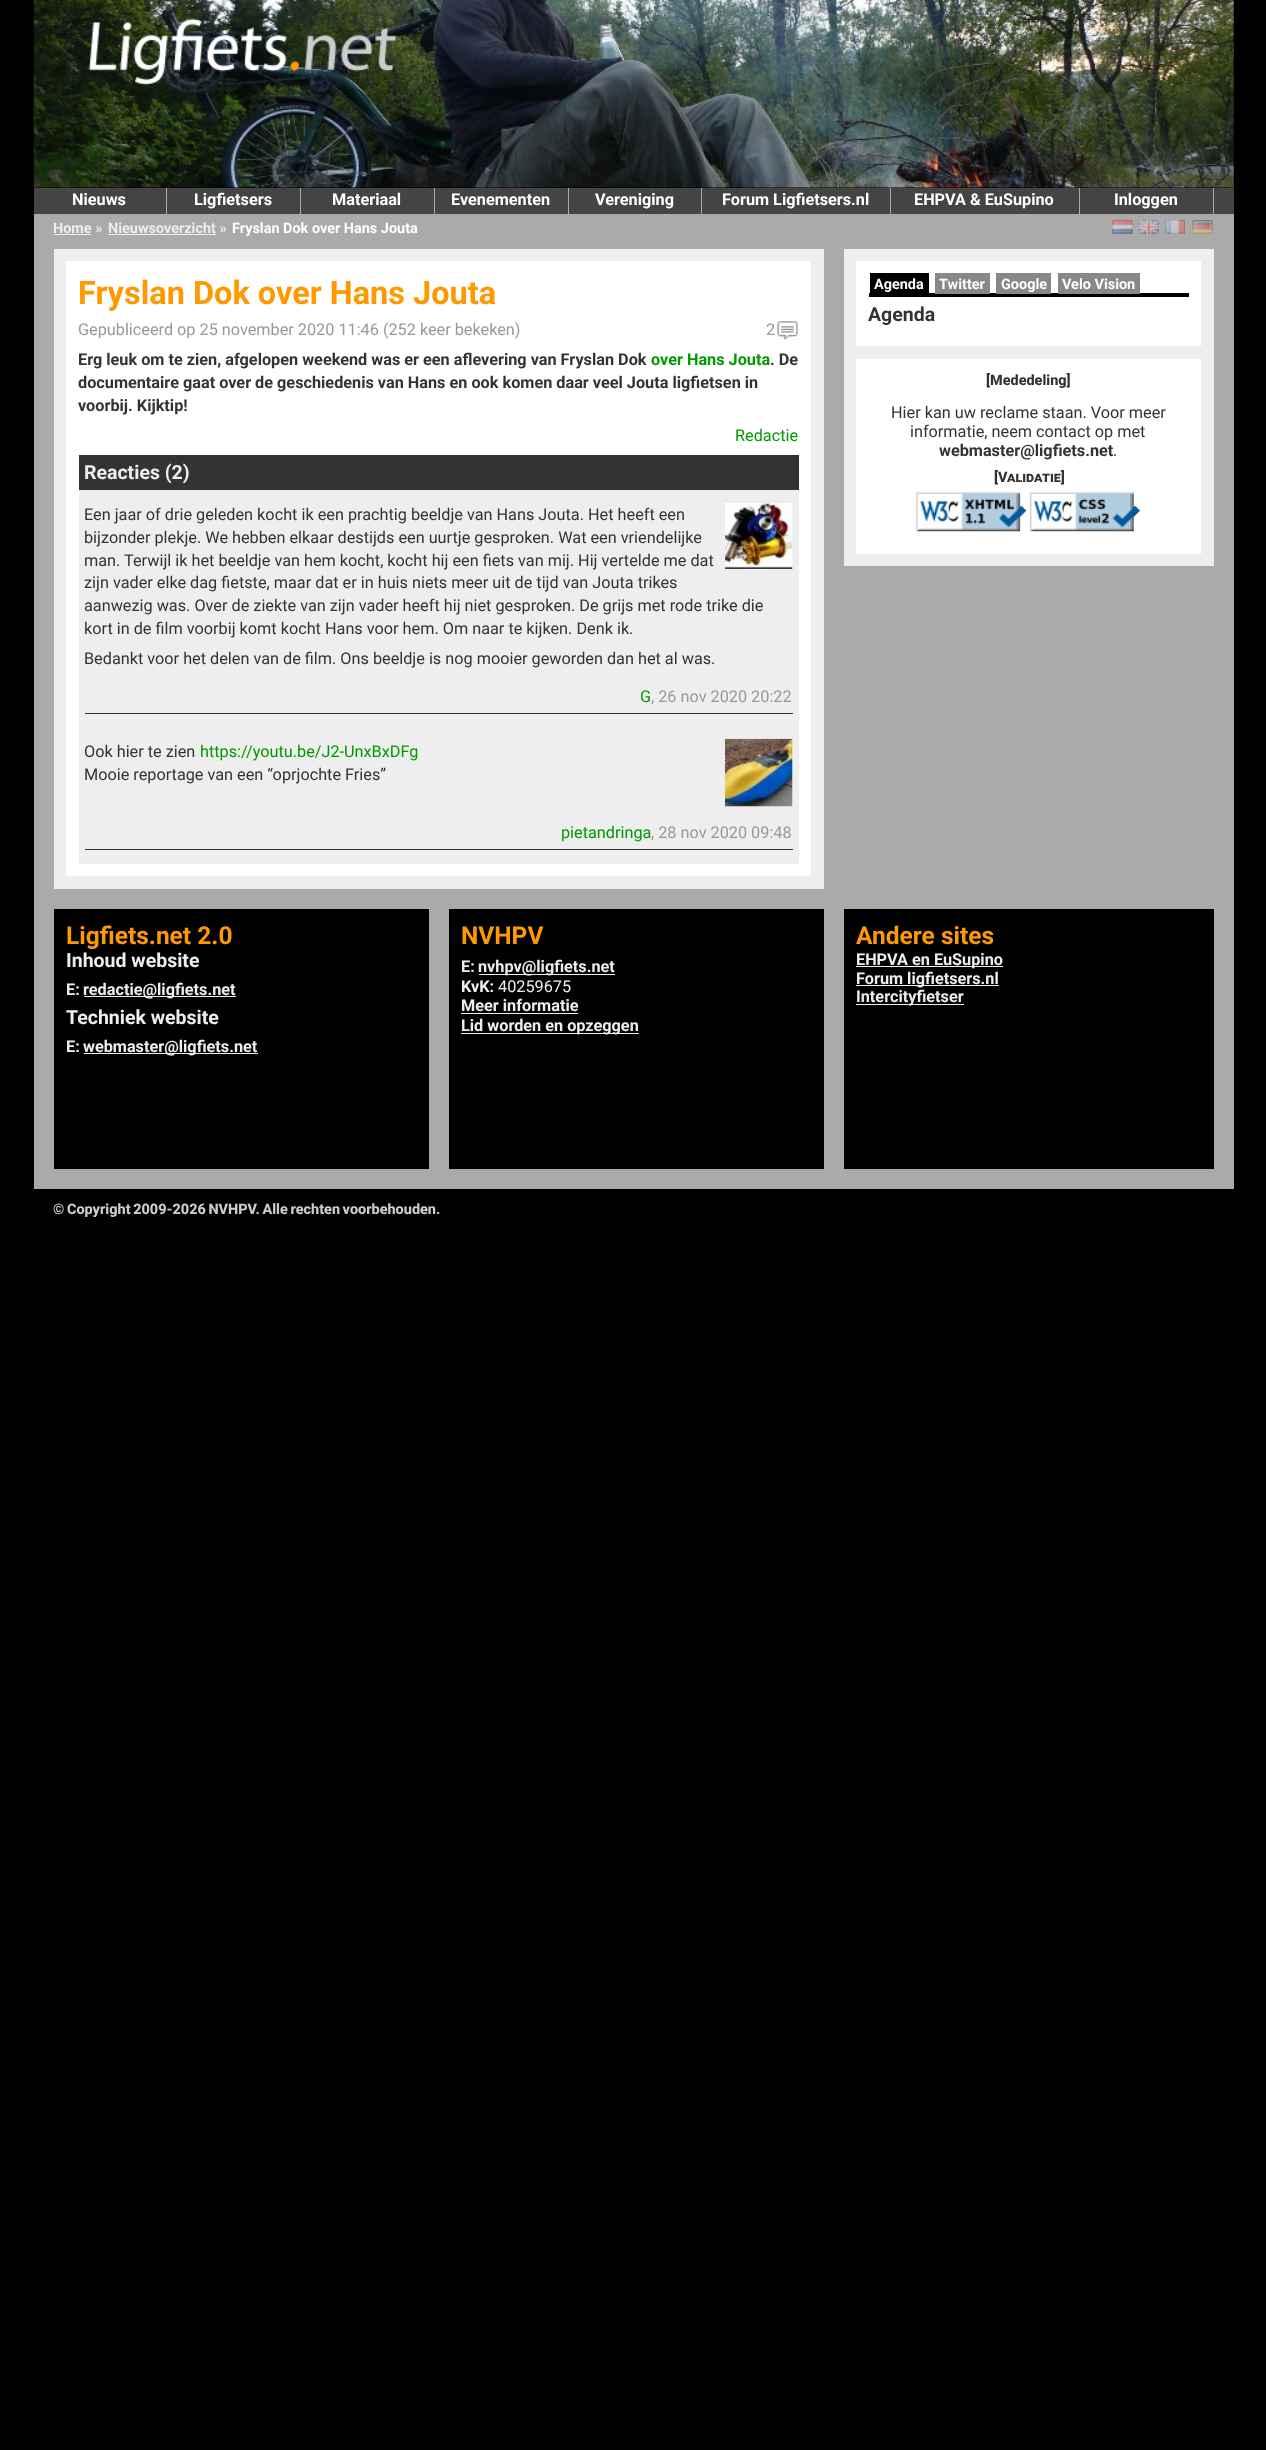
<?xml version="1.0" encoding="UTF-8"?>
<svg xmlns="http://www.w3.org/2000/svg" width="1266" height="2450">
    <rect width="100%" height="100%" fill="#000000"/>
    <image x="33" y="0" width="1201" height="188" href="img_01.png"/>
    <image x="88" y="18" width="309" height="68" href="img_02.png"/>
    <rect x="34" y="188" width="1200" height="26" fill="#444444"/>
    <rect x="166" y="188" width="1" height="26" fill="#AAAAAA"/>
    <text x="72" y="205" font-family="Roboto" font-size="16.25" font-weight="700" fill="#FFFFFF">Nieuws</text>
    <rect x="300" y="188" width="1" height="26" fill="#AAAAAA"/>
    <text x="194" y="205" font-family="Roboto" font-size="16.25" font-weight="700" fill="#FFFFFF">Ligfietsers</text>
    <rect x="434" y="188" width="1" height="26" fill="#AAAAAA"/>
    <text x="332" y="205" font-family="Roboto" font-size="16.25" font-weight="700" fill="#FFFFFF">Materiaal</text>
    <rect x="568" y="188" width="1" height="26" fill="#AAAAAA"/>
    <text x="451" y="205" font-family="Roboto" font-size="16.25" font-weight="700" fill="#FFFFFF">Evenementen</text>
    <rect x="701" y="188" width="1" height="26" fill="#AAAAAA"/>
    <text x="595" y="205" font-family="Roboto" font-size="16.25" font-weight="700" fill="#FFFFFF">Vereniging</text>
    <rect x="890" y="188" width="1" height="26" fill="#AAAAAA"/>
    <text x="722" y="205" font-family="Roboto" font-size="16.25" font-weight="700" fill="#FFFFFF">Forum Ligfietsers.nl</text>
    <rect x="1079" y="188" width="1" height="26" fill="#AAAAAA"/>
    <text x="914" y="205" font-family="Roboto" font-size="16.25" font-weight="700" fill="#FFFFFF">EHPVA &amp; EuSupino</text>
    <rect x="1213" y="188" width="1" height="26" fill="#AAAAAA"/>
    <text x="1114" y="205" font-family="Roboto" font-size="16.25" font-weight="700" fill="#FFFFFF">Inloggen</text>
    <rect x="34" y="214" width="1200" height="975" fill="#AAAAAA"/>
    <text x="53" y="233" font-family="Roboto" font-size="14.45" font-weight="700" fill="#EEEEEE">Home »</text>
    <rect x="54" y="234" width="37" height="1" fill="#EEEEEE"/>
    <text x="108" y="233" font-family="Roboto" font-size="14.45" font-weight="700" fill="#EEEEEE">Nieuwsoverzicht »</text>
    <rect x="108" y="234" width="108" height="1" fill="#EEEEEE"/>
    <text x="232" y="233" font-family="Roboto" font-size="14.45" font-weight="700" fill="#FFFFFF">Fryslan Dok over Hans Jouta</text>
    <image x="1112" y="220" width="21" height="14" href="img_03.png"/>
    <image x="1138" y="220" width="21" height="14" href="img_04.png"/>
    <image x="1165" y="220" width="20" height="14" href="img_05.png"/>
    <image x="1192" y="220" width="21" height="14" href="img_06.png"/>
    <rect x="54" y="249" width="770" height="640" fill="#EEEEEE"/>
    <rect x="66" y="261" width="745" height="615" fill="#FFFFFF"/>
    <text x="78" y="304" font-family="Roboto" font-size="32.5" font-weight="700" fill="#FF9900">Fryslan Dok over Hans Jouta</text>
    <text x="78" y="335" font-family="Roboto" font-size="16.25" fill="#999999">Gepubliceerd op 25 november 2020 11:46 (252 keer bekeken)</text>
    <text x="766" y="335" font-family="Roboto" font-size="16.25" fill="#999999">2</text>
    <image x="777" y="321" width="21" height="19" href="img_07.png"/>
    <text x="78" y="365" font-family="Roboto" font-size="16.25" font-weight="700" fill="#333333">Erg leuk om te zien, afgelopen weekend was er een aflevering van Fryslan Dok</text>
    <text x="651" y="365" font-family="Roboto" font-size="16.25" font-weight="700" fill="#009900">over Hans Jouta</text>
    <text x="770" y="365" font-family="Roboto" font-size="16.25" font-weight="700" fill="#333333">. De</text>
    <text font-family="Roboto" font-size="16.25" font-weight="700" fill="#333333">
        <tspan x="78" y="388">documentaire gaat over de geschiedenis van Hans en ook komen daar veel Jouta ligfietsen in</tspan>
        <tspan x="78" y="411">voorbij. Kijktip!</tspan>
    </text>
    <text x="735" y="441" font-family="Roboto" font-size="16.25" fill="#009900">Redactie</text>
    <rect x="79" y="490" width="720" height="374" fill="#EEEEEE"/>
    <rect x="79" y="455" width="720" height="35" fill="#333333"/>
    <text x="84" y="479" font-family="Roboto" font-size="19.5" font-weight="700" fill="#EEEEEE">Reacties (2)</text>
    <image x="725" y="501" width="68" height="68" href="img_08.png"/>
    <text font-family="Roboto" font-size="16.25" fill="#333333">
        <tspan x="84" y="520">Een jaar of drie geleden kocht ik een prachtig beeldje van Hans Jouta. Het heeft een</tspan>
        <tspan x="84" y="543">bijzonder plekje. We hebben elkaar destijds een uurtje gesproken. Wat een vriendelijke</tspan>
        <tspan x="84" y="566">man. Terwijl ik het beeldje van hem kocht, kocht hij een fiets van mij. Hij vertelde me dat</tspan>
        <tspan x="84" y="588">zijn vader elke dag fietste, maar dat er in huis niets meer uit de tijd van Jouta trikes</tspan>
        <tspan x="84" y="611">aanwezig was. Over de ziekte van zijn vader heeft hij niet gesproken. De grijs met rode trike die</tspan>
        <tspan x="84" y="634">kort in de film voorbij komt kocht Hans voor hem. Om naar te kijken. Denk ik.</tspan>
        <tspan x="84" y="664">Bedankt voor het delen van de film. Ons beeldje is nog mooier geworden dan het al was.</tspan>
    </text>
    <rect x="85" y="713" width="708" height="1" fill="#333333"/>
    <text x="640" y="702" font-family="Roboto" font-size="16.25" fill="#009900">G</text>
    <text x="651" y="702" font-family="Roboto" font-size="16.25" fill="#999999">, 26 nov 2020 20:22</text>
    <text x="84" y="757" font-family="Roboto" font-size="16.25" fill="#333333">Ook hier te zien</text>
    <text x="200" y="757" font-family="Roboto" font-size="16.25" fill="#009900">https://youtu.be/J2-UnxBxDFg</text>
    <text x="84" y="780" font-family="Roboto" font-size="16.25" fill="#333333">Mooie reportage van een “oprjochte Fries”</text>
    <image x="725" y="738" width="68" height="69" href="img_09.png"/>
    <rect x="85" y="849" width="708" height="1" fill="#333333"/>
    <text x="561" y="838" font-family="Roboto" font-size="16.25" fill="#009900">pietandringa</text>
    <text x="651" y="838" font-family="Roboto" font-size="16.25" fill="#999999">, 28 nov 2020 09:48</text>
    <rect x="844" y="249" width="370" height="317" fill="#EEEEEE"/>
    <rect x="856" y="261" width="345" height="85" fill="#FFFFFF"/>
    <rect x="869" y="293" width="320" height="4" fill="#000000"/>
    <rect x="870" y="273" width="59" height="20" fill="#000000"/>
    <text x="874" y="289" font-family="Roboto" font-size="14.45" font-weight="700" fill="#FFFFFF">Agenda</text>
    <rect x="935" y="273" width="55" height="21" fill="#888888"/>
    <text x="939" y="289" font-family="Roboto" font-size="14.45" font-weight="700" fill="#FFFFFF">Twitter</text>
    <rect x="996" y="273" width="55" height="21" fill="#888888"/>
    <text x="1001" y="289" font-family="Roboto" font-size="14.45" font-weight="700" fill="#FFFFFF">Google</text>
    <rect x="1058" y="273" width="82" height="21" fill="#888888"/>
    <text x="1062" y="289" font-family="Roboto" font-size="14.45" font-weight="700" fill="#FFFFFF">Velo Vision</text>
    <text x="868" y="321" font-family="Roboto" font-size="19.5" font-weight="700" fill="#333333">Agenda</text>
    <rect x="856" y="359" width="345" height="195" fill="#FFFFFF"/>
    <text x="986" y="385" font-family="Roboto" font-size="14.45" font-weight="800" fill="#333333">[Mededeling]</text>
    <text x="891" y="418" font-family="Roboto" font-size="16.25" fill="#333333">Hier kan uw reclame staan. Voor meer</text>
    <text x="910" y="437" font-family="Roboto" font-size="16.25" fill="#333333">informatie, neem contact op met</text>
    <text x="939" y="456" font-family="Roboto" font-size="16.25" font-weight="700" fill="#333333">webmaster@ligfiets.net</text>
    <text x="1113" y="456" font-family="Roboto" font-size="16.25" fill="#333333">.</text>
    <text x="994" y="482" font-family="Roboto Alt" font-size="14.45" font-weight="800" fill="#333333">[Validatie]</text>
    <image x="916" y="492" width="111" height="40" href="img_10.png"/>
    <image x="1030" y="492" width="110" height="40" href="img_11.png"/>
    <rect x="54" y="909" width="375" height="260" fill="#000000"/>
    <text x="66" y="944" font-family="Roboto" font-size="24.5" font-weight="700" fill="#FF9900">Ligfiets.net 2.0</text>
    <text x="66" y="967" font-family="Roboto" font-size="19.5" font-weight="700" fill="#EEEEEE">Inhoud website</text>
    <text x="66" y="995" font-family="Roboto" font-size="16.25" font-weight="700" fill="#EEEEEE">E:</text>
    <rect x="84" y="996" width="152" height="1" fill="#EEEEEE"/>
    <text x="83" y="995" font-family="Roboto" font-size="16.25" font-weight="700" fill="#EEEEEE">redactie@ligfiets.net</text>
    <text x="66" y="1024" font-family="Roboto" font-size="19.5" font-weight="700" fill="#EEEEEE">Techniek website</text>
    <text x="66" y="1052" font-family="Roboto" font-size="16.25" font-weight="700" fill="#EEEEEE">E:</text>
    <rect x="84" y="1053" width="174" height="1" fill="#EEEEEE"/>
    <text x="83" y="1052" font-family="Roboto" font-size="16.25" font-weight="700" fill="#EEEEEE">webmaster@ligfiets.net</text>
    <rect x="449" y="909" width="375" height="260" fill="#000000"/>
    <text x="461" y="944" font-family="Roboto" font-size="24.5" font-weight="700" fill="#FF9900">NVHPV</text>
    <text x="461" y="972" font-family="Roboto" font-size="16.25" font-weight="700" fill="#EEEEEE">E:</text>
    <rect x="479" y="974" width="136" height="1" fill="#EEEEEE"/>
    <text x="478" y="972" font-family="Roboto" font-size="16.25" font-weight="700" fill="#EEEEEE">nvhpv@ligfiets.net</text>
    <text x="461" y="992" font-family="Roboto" font-size="16.25" font-weight="700" fill="#EEEEEE">KvK:</text>
    <text x="498" y="992" font-family="Roboto" font-size="16.25" fill="#EEEEEE">40259675</text>
    <text x="461" y="1011" font-family="Roboto" font-size="16.25" font-weight="700" fill="#EEEEEE">Meer informatie</text>
    <rect x="461" y="1013" width="117" height="1" fill="#EEEEEE"/>
    <rect x="461" y="1033" width="178" height="1" fill="#EEEEEE"/>
    <text x="461" y="1031" font-family="Roboto" font-size="16.25" font-weight="700" fill="#EEEEEE">Lid worden en opzeggen</text>
    <rect x="844" y="909" width="370" height="260" fill="#000000"/>
    <text x="856" y="944" font-family="Roboto" font-size="24.5" font-weight="700" fill="#FF9900">Andere sites</text>
    <rect x="856" y="966" width="147" height="1" fill="#EEEEEE"/>
    <text x="856" y="965" font-family="Roboto" font-size="16.25" font-weight="700" fill="#EEEEEE">EHPVA en EuSupino</text>
    <rect x="856" y="985" width="143" height="1" fill="#EEEEEE"/>
    <text x="856" y="984" font-family="Roboto" font-size="16.25" font-weight="700" fill="#EEEEEE">Forum ligfietsers.nl</text>
    <rect x="856" y="1004" width="108" height="1" fill="#EEEEEE"/>
    <text x="856" y="1002" font-family="Roboto" font-size="16.25" font-weight="700" fill="#EEEEEE">Intercityfietser</text>
    <text x="53" y="1214" word-spacing="-1" font-family="Roboto" font-size="14.45" font-weight="800" fill="#CCCCCC">© Copyright 2009-2026 NVHPV. Alle rechten voorbehouden.</text>
</svg>
